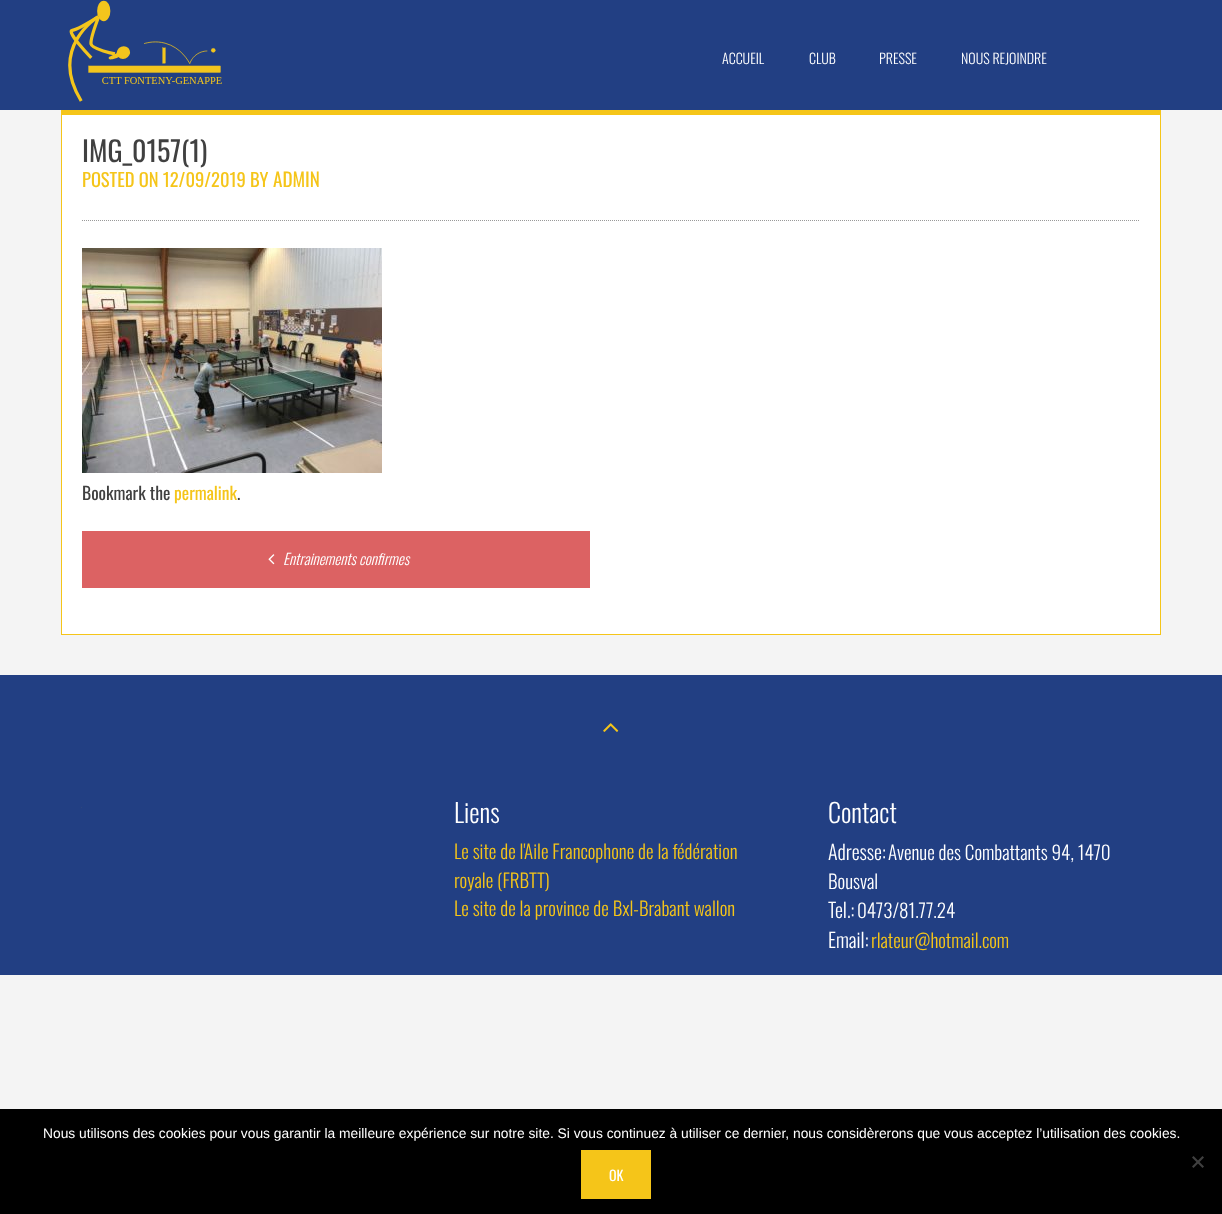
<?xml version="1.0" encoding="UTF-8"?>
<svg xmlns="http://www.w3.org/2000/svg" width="1222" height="1214">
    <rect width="100%" height="100%" fill="#F4F4F4"/>
    <rect x="0" y="0" width="1222" height="110" fill="#223F83"/>
    <image x="68" y="0" width="154" height="102" href="img_01.png"/>
    <text x="722" y="64" font-family="Oswald" font-size="14" font-weight="300" fill="#FFFFFF">ACCUEIL</text>
    <text x="809" y="64" font-family="Oswald" font-size="14" font-weight="300" fill="#FFFFFF">CLUB</text>
    <text x="879" y="64" font-family="Oswald" font-size="14" font-weight="300" fill="#FFFFFF">PRESSE</text>
    <text x="961" y="64" font-family="Oswald" font-size="14" font-weight="300" fill="#FFFFFF">NOUS REJOINDRE</text>
    <rect x="62" y="115" width="1098" height="519" fill="#FFFFFF"/>
    <rect x="61" y="110" width="1100" height="5" fill="#F5C519"/>
    <rect x="1160" y="110" width="1" height="525" fill="#F5C519"/>
    <rect x="61" y="634" width="1100" height="1" fill="#F5C519"/>
    <rect x="61" y="110" width="1" height="525" fill="#F5C519"/>
    <path d="M 82 220.5 H 1140" fill="none" stroke="#999999" stroke-dasharray="1 1"/>
    <text x="82" y="162" font-family="Oswald" font-size="28" fill="#404040">IMG_0157(1)</text>
    <text x="82" y="187" font-family="Oswald" font-size="18.5" fill="#F5C519">POSTED ON 12/09/2019 BY</text>
    <text x="273" y="187" font-family="Oswald" font-size="19.1" fill="#F5C519">ADMIN</text>
    <image x="82" y="248" width="300" height="225" href="img_02.png"/>
    <text x="82" y="500" font-family="Oswald" font-size="17.5" fill="#404040">Bookmark the</text>
    <text x="174" y="500" font-family="Oswald" font-size="17.5" fill="#F5C519">permalink</text>
    <text x="237" y="500" font-family="Oswald" font-size="17.5" fill="#404040">.</text>
    <rect x="82" y="531" width="508" height="57" fill="#DC6263"/>
    <image x="268" y="554" width="7" height="11" href="img_03.png"/>
    <text x="283" y="565" font-family="Oswald" font-size="15" font-weight="300" font-style="italic" fill="#FFFFFF">Entrainements confirmes</text>
    <rect x="0" y="675" width="1222" height="300" fill="#223F83"/>
    <image x="603" y="723" width="16" height="9" href="img_04.png"/>
    <rect x="81" y="807" width="1" height="1" fill="#2D467C"/>
    <text x="454" y="823" font-family="Oswald" font-size="26" font-weight="300" fill="#FFFFFF">Liens</text>
    <text font-family="Oswald" font-size="19.1" font-weight="300" fill="#F5C519">
        <tspan x="454" y="859">Le site de l'Aile Francophone de la fédération</tspan>
        <tspan x="454" y="888">royale (FRBTT)</tspan>
        <tspan x="454" y="916">Le site de la province de Bxl-Brabant wallon</tspan>
    </text>
    <text x="828" y="823" font-family="Oswald" font-size="26" font-weight="300" fill="#FFFFFF">Contact</text>
    <text x="828" y="860" font-family="Oswald" font-size="20" font-weight="300" fill="#FFFFFF">Adresse:</text>
    <text x="888" y="860" font-family="Oswald" font-size="19.1" font-weight="300" fill="#FFFFFF">Avenue des Combattants 94, 1470</text>
    <text x="828" y="889" font-family="Oswald" font-size="19.1" font-weight="300" fill="#FFFFFF">Bousval</text>
    <text x="828" y="918" font-family="Oswald" font-size="20" font-weight="300" fill="#FFFFFF">Tel.:</text>
    <text x="857" y="918" font-family="Oswald" font-size="19.1" font-weight="300" fill="#FFFFFF">0473/81.77.24</text>
    <text x="828" y="948" font-family="Oswald" font-size="20" font-weight="300" fill="#FFFFFF">Email:</text>
    <text x="871" y="948" font-family="Oswald" font-size="19.1" font-weight="300" fill="#F5C519">rlateur@hotmail.com</text>
    <rect x="0" y="1109" width="1222" height="105" fill="#000000"/>
    <text x="43" y="1138" font-family="Liberation Sans" font-size="13.8" fill="#FFFFFF">Nous utilisons des cookies pour vous garantir la meilleure expérience sur notre site. Si vous continuez à utiliser ce dernier, nous considèrerons que vous acceptez l’utilisation des cookies.</text>
    <path d="M 1202.5 1156 L 1204 1157.5 L 1193.5 1168 L 1192 1166.5 Z" fill="#404040"/>
    <path d="M 1192 1157.5 L 1193.5 1156 L 1204 1166.5 L 1202.5 1168 Z" fill="#404040"/>
    <rect x="581" y="1150" width="70" height="49" fill="#F5C519"/>
    <text x="609" y="1181" font-family="Oswald" font-size="14" fill="#FFFFFF">OK</text>
</svg>
